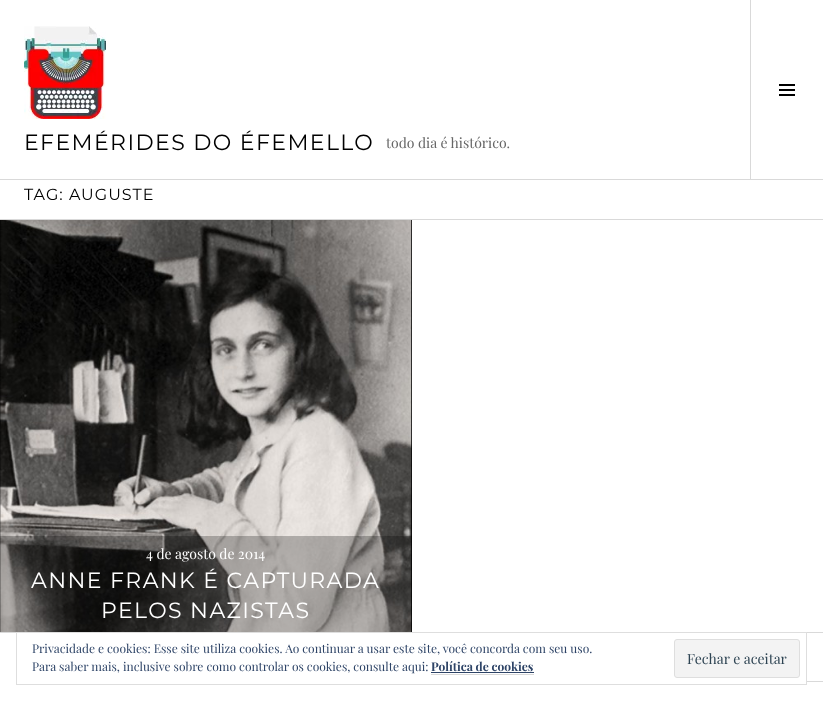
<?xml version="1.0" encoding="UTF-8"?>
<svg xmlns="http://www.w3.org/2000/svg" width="823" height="701">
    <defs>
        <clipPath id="clip1"><rect x="0" y="633" width="823" height="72"/></clipPath>
    </defs>
    <rect width="100%" height="100%" fill="#FFFFFF"/>
    <rect x="0" y="179" width="823" height="1" fill="#D9D9D9"/>
    <image x="24" y="26" width="82" height="93" href="img_01.png"/>
    <text x="24" y="150" font-family="Montserrat" font-size="22" letter-spacing="1.4" fill="#000000">EFEMÉRIDES DO ÉFEMELLO</text>
    <text x="386" y="148" font-family="Playfair Display" font-size="14" fill="#666666">todo dia é histórico.</text>
    <rect x="750" y="0" width="1" height="179" fill="#D9D9D9"/>
    <image x="779" y="84" width="16" height="12" href="img_02.png"/>
    <rect x="0" y="219" width="823" height="1" fill="#D9D9D9"/>
    <text x="24" y="200" font-family="Montserrat" font-size="16" letter-spacing="1" fill="#000000">TAG: AUGUSTE</text>
    <rect x="0" y="220" width="412" height="412" fill="#000000"/>
    <image x="0" y="220" width="412" height="412" href="img_03.png"/>
    <rect x="0" y="536" width="412" height="96" fill="#000000" fill-opacity="0.25"/>
    <text x="146" y="559" font-family="Playfair Display" font-size="14" fill="#FFFFFF">4 de agosto de 2014</text>
    <text x="31" y="588" font-family="Montserrat" font-size="22" letter-spacing="1.4" fill="#FFFFFF">ANNE FRANK É CAPTURADA</text>
    <text x="101" y="618" font-family="Montserrat" font-size="22" letter-spacing="1.4" fill="#FFFFFF">PELOS NAZISTAS</text>
    <rect x="0" y="632" width="823" height="1" fill="#D9D9D9"/>
    <g clip-path="url(#clip1)">
        <rect x="774.5" y="632.5" width="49" height="49" fill="none" stroke="#D9D9D9"/>
    </g>
    <rect x="774" y="633" width="32" height="49" fill="#FFFFFF"/>
    <rect x="16.5" y="632.5" width="790" height="52" fill="none" stroke="#DEDEDE"/>
    <text x="32" y="653" font-family="Playfair Display" font-size="12" fill="#2E4467">Privacidade e cookies: Esse site utiliza cookies. Ao continuar a usar este site, você concorda com seu uso.</text>
    <rect x="674.5" y="639.5" width="125" height="38" rx="2.5" fill="#F3F3F3" stroke="#DEDEDE"/>
    <text x="687" y="664" font-family="Playfair Display" font-size="14" fill="#2E4453">Fechar e aceitar</text>
    <text x="32" y="671" font-family="Playfair Display" font-size="12" fill="#2E4467">Para saber mais, inclusive sobre como controlar os cookies, consulte aqui:</text>
    <text x="431" y="671" font-family="Playfair Display" font-size="12" font-weight="700" fill="#2E4467">Política de cookies</text>
    <rect x="431" y="674" width="103" height="1" fill="#D9D9D9"/>
    <rect x="431" y="672" width="103" height="1" fill="#2E4467"/>
</svg>
